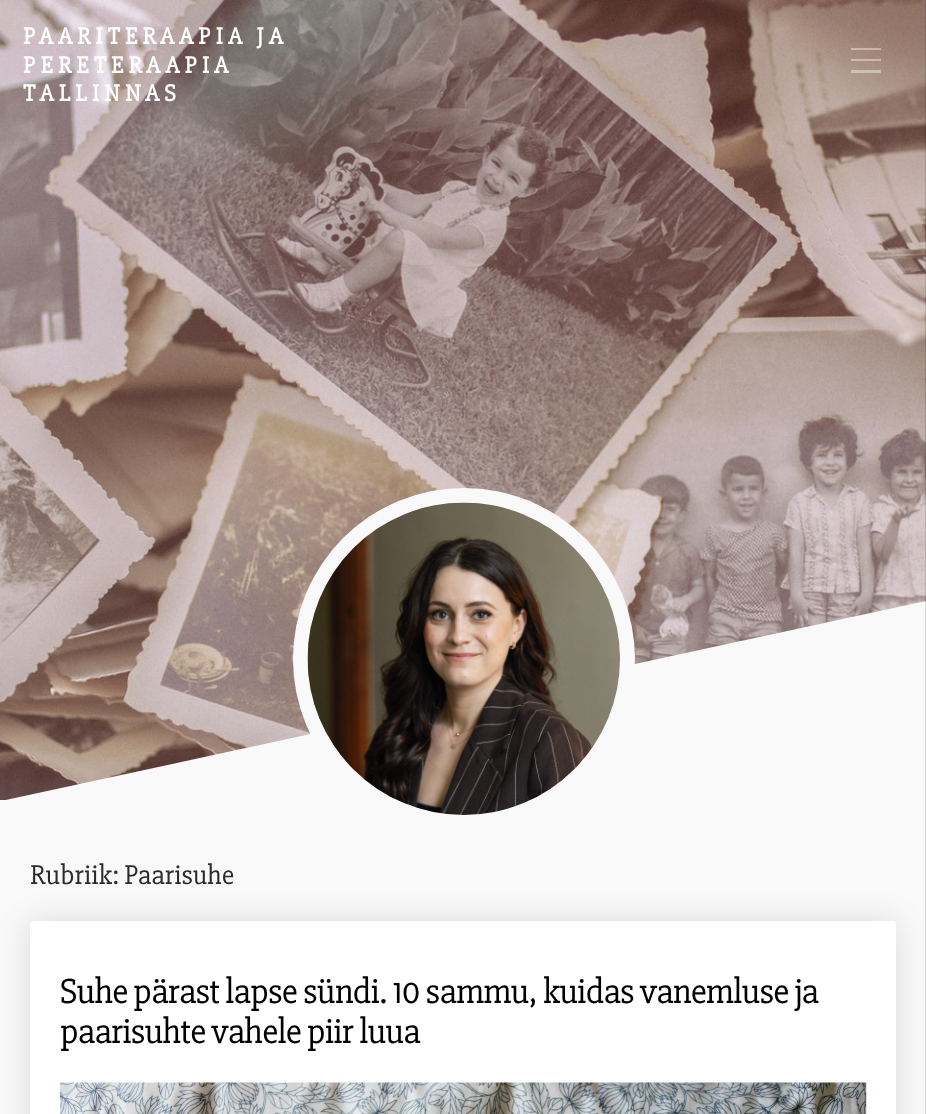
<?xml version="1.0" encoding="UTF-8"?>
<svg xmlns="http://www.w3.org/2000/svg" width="926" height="1114">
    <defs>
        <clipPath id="clip1"><rect x="0" y="0" width="926" height="800"/></clipPath>
        <filter id="blur1" x="-50%" y="-200%" width="200%" height="500%"><feGaussianBlur stdDeviation="15"/></filter>
    </defs>
    <rect width="100%" height="100%" fill="#F9F9F9"/>
    <image x="0" y="0" width="926" height="800" href="img_01.png"/>
    <g clip-path="url(#clip1)">
        <path d="M 926 601 V 801 H 1 Z" fill="#F9F9F9"/>
    </g>
    <text font-family="'Slabo 27px'" font-size="24" font-weight="700" letter-spacing="5" fill="#FFFFFF">
        <tspan x="23" y="44">PAARITERAAPIA JA</tspan>
        <tspan x="23" y="73">PERETERAAPIA</tspan>
        <tspan x="23" y="101">TALLINNAS</tspan>
    </text>
    <rect x="851" y="48" width="30" height="2" fill="#FFFFFF" fill-opacity="0.4"/>
    <rect x="851" y="59" width="30" height="2" fill="#FFFFFF" fill-opacity="0.4"/>
    <rect x="851" y="70" width="30" height="3" fill="#FFFFFF" fill-opacity="0.4"/>
    <circle cx="464" cy="659" r="171" fill="#F9F9F9"/>
    <image x="307" y="502" width="313" height="313" href="img_02.png"/>
    <text x="30" y="884" font-family="'Slabo 27px'" font-size="28" fill="#2B2B2B">Rubriik: Paarisuhe</text>
    <rect x="30" y="921" width="866" height="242" rx="4" fill="#000000" fill-opacity="0.12" filter="url(#blur1)"/>
    <rect x="30" y="921" width="866" height="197" rx="4" fill="#FFFFFF"/>
    <text font-family="'Slabo 27px'" font-size="36" letter-spacing="-0.8" fill="#000000">
        <tspan x="60" y="1003">Suhe pärast lapse sündi. 10 sammu, kuidas vanemluse ja</tspan>
        <tspan x="60" y="1043">paarisuhte vahele piir luua</tspan>
    </text>
    <image x="60" y="1082" width="807" height="32" href="img_03.png"/>
    <rect x="925" y="0" width="1" height="1114" fill="#000000" fill-opacity="0.12"/>
</svg>
